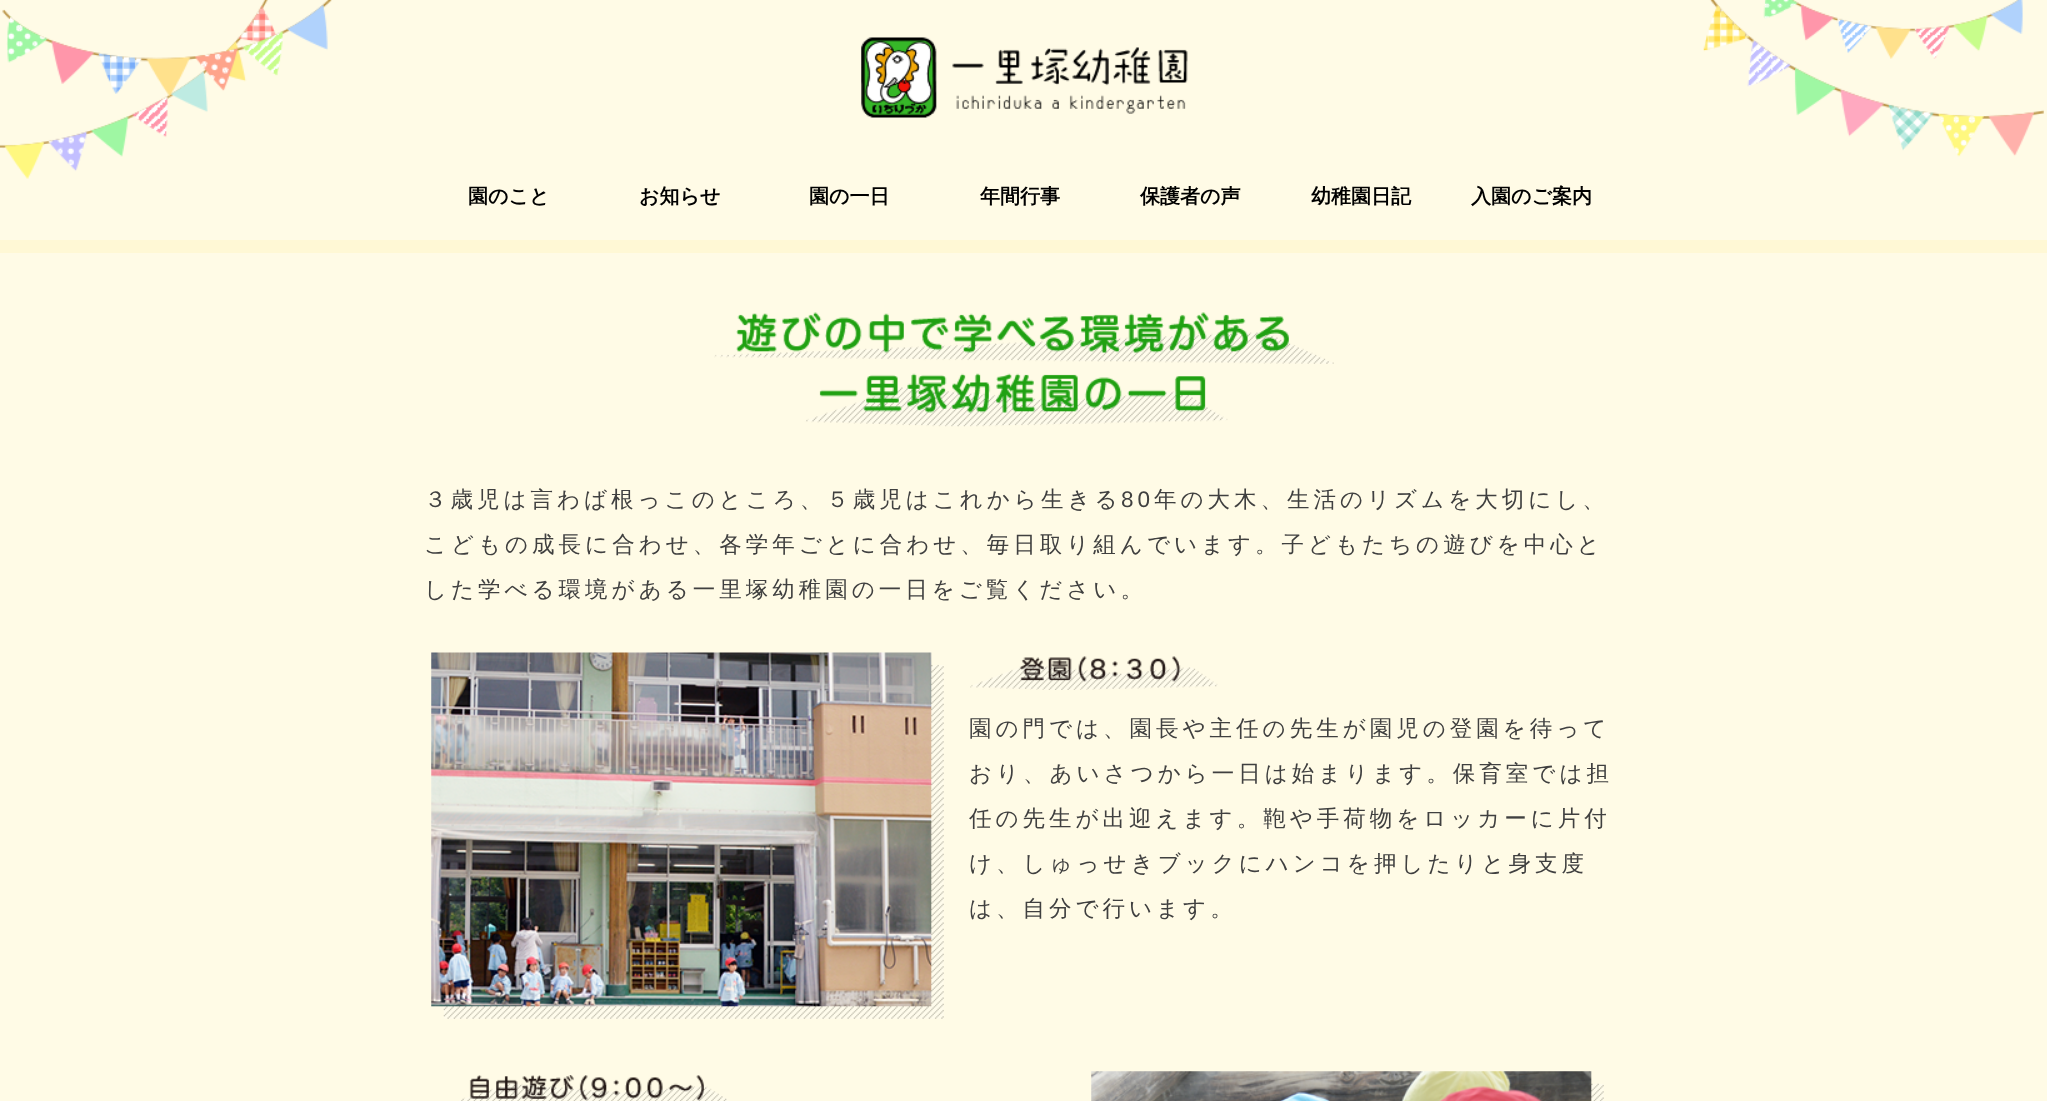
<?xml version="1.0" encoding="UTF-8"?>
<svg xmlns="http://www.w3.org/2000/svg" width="2047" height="1101">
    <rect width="100%" height="100%" fill="#FFFBE6"/>
    <image x="0" y="0" width="2044" height="179" href="img_01.png"/>
    <rect x="0" y="240" width="2047" height="13" fill="#FFF8D5"/>
    <image x="861" y="37" width="327" height="81" href="img_02.png"/>
    <text x="468" y="203" font-family="WenQuanYi Zen Hei" font-size="20" font-weight="700" fill="#000000">園のこと</text>
    <text x="639" y="203" font-family="WenQuanYi Zen Hei" font-size="20" font-weight="700" fill="#000000">お知らせ</text>
    <text x="809" y="203" font-family="WenQuanYi Zen Hei" font-size="20" font-weight="700" fill="#000000">園の一日</text>
    <text x="980" y="203" font-family="WenQuanYi Zen Hei" font-size="20" font-weight="700" fill="#000000">年間行事</text>
    <text x="1140" y="203" font-family="WenQuanYi Zen Hei" font-size="20" font-weight="700" fill="#000000">保護者の声</text>
    <text x="1311" y="203" font-family="WenQuanYi Zen Hei" font-size="20" font-weight="700" fill="#000000">幼稚園日記</text>
    <text x="1471" y="203" font-family="WenQuanYi Zen Hei" font-size="20" font-weight="700" fill="#000000">入園のご案内</text>
    <image x="714" y="312" width="620" height="115" href="img_03.png"/>
    <text x="424" y="507" font-family="WenQuanYi Zen Hei" font-size="22.5" font-weight="500" letter-spacing="4" fill="#404040">３歳児は言わば根っこのところ、５歳児はこれから生きる</text>
    <text x="1121" y="507" font-family="Liberation Sans" font-size="22.5" letter-spacing="4" fill="#404040">80</text>
    <text x="1154" y="507" font-family="WenQuanYi Zen Hei" font-size="22.5" font-weight="500" letter-spacing="4" fill="#404040">年の大木、生活のリズムを大切にし、</text>
    <text x="424" y="552" font-family="WenQuanYi Zen Hei" font-size="22.5" font-weight="500" letter-spacing="4" fill="#404040">こどもの成長に合わせ、各学年ごとに合わせ、毎日取り組んでいます。子どもたちの遊びを中心と</text>
    <text x="424" y="597" font-family="WenQuanYi Zen Hei" font-size="22.5" font-weight="500" letter-spacing="4" fill="#404040">した学べる環境がある一里塚幼稚園の一日をご覧ください。</text>
    <image x="431" y="652" width="513" height="367" href="img_04.png"/>
    <image x="970" y="656" width="248" height="34" href="img_05.png"/>
    <text x="969" y="736" font-family="WenQuanYi Zen Hei" font-size="22.5" font-weight="500" letter-spacing="4" fill="#404040">園の門では、園長や主任の先生が園児の登園を待って</text>
    <text x="969" y="781" font-family="WenQuanYi Zen Hei" font-size="22.5" font-weight="500" letter-spacing="4" fill="#404040">おり、あいさつから一日は始まります。保育室では担</text>
    <text x="969" y="826" font-family="WenQuanYi Zen Hei" font-size="22.5" font-weight="500" letter-spacing="4" fill="#404040">任の先生が出迎えます。鞄や手荷物をロッカーに片付</text>
    <text x="969" y="871" font-family="WenQuanYi Zen Hei" font-size="22.5" font-weight="500" letter-spacing="4" fill="#404040">け、しゅっせきブックにハンコを押したりと身支度</text>
    <text x="969" y="916" font-family="WenQuanYi Zen Hei" font-size="22.5" font-weight="500" letter-spacing="4" fill="#404040">は、自分で行います。</text>
    <image x="459" y="1075" width="270" height="26" href="img_06.png"/>
    <image x="1091" y="1071" width="513" height="30" href="img_07.png"/>
</svg>
